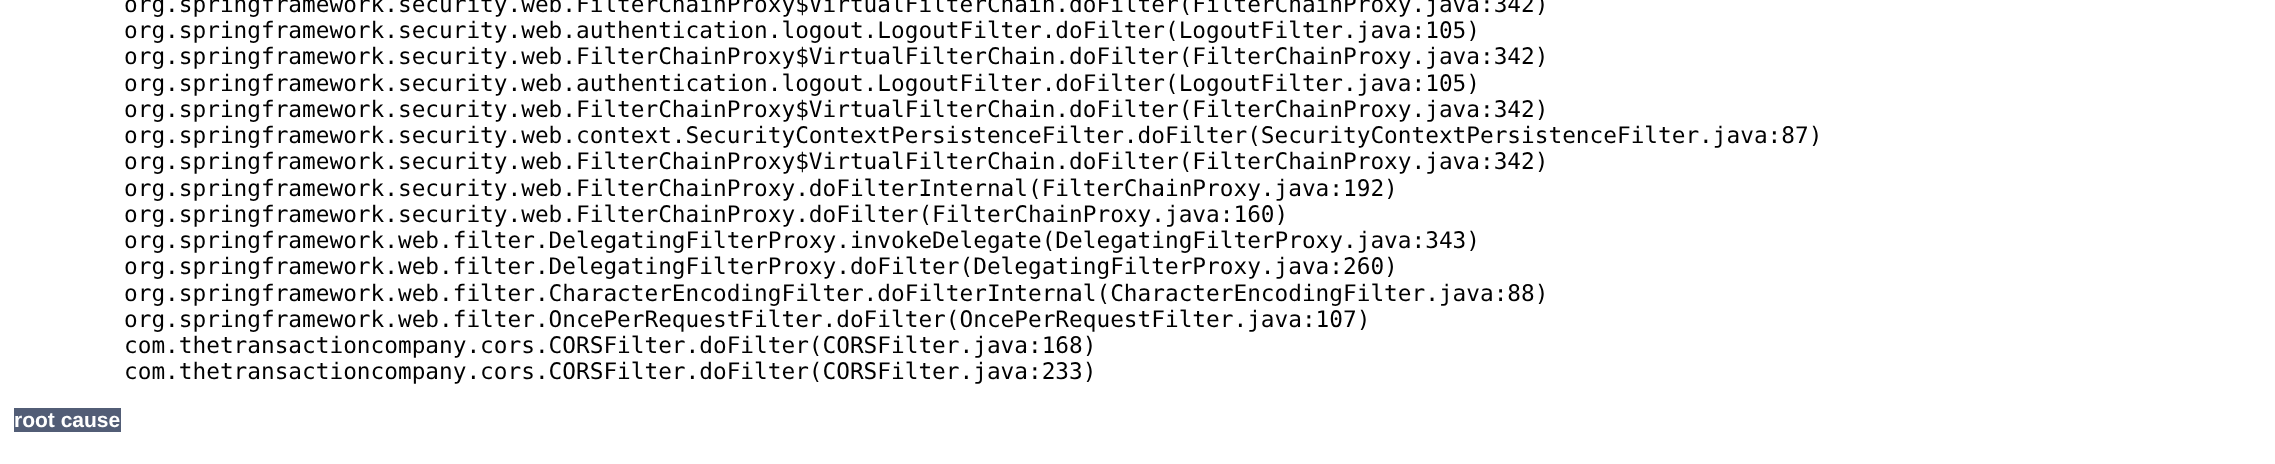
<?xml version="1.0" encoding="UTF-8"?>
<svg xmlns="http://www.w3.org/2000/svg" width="2275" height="464">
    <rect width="100%" height="100%" fill="#FFFFFF"/>
    <text font-family="DejaVu Sans Mono" font-size="22.75" fill="#000000">
        <tspan x="124" y="12">org.springframework.security.web.FilterChainProxy$VirtualFilterChain.doFilter(FilterChainProxy.java:342)</tspan>
        <tspan x="124" y="38">org.springframework.security.web.authentication.logout.LogoutFilter.doFilter(LogoutFilter.java:105)</tspan>
        <tspan x="124" y="64">org.springframework.security.web.FilterChainProxy$VirtualFilterChain.doFilter(FilterChainProxy.java:342)</tspan>
        <tspan x="124" y="91">org.springframework.security.web.authentication.logout.LogoutFilter.doFilter(LogoutFilter.java:105)</tspan>
        <tspan x="124" y="117">org.springframework.security.web.FilterChainProxy$VirtualFilterChain.doFilter(FilterChainProxy.java:342)</tspan>
        <tspan x="124" y="143">org.springframework.security.web.context.SecurityContextPersistenceFilter.doFilter(SecurityContextPersistenceFilter.java:87)</tspan>
        <tspan x="124" y="169">org.springframework.security.web.FilterChainProxy$VirtualFilterChain.doFilter(FilterChainProxy.java:342)</tspan>
        <tspan x="124" y="196">org.springframework.security.web.FilterChainProxy.doFilterInternal(FilterChainProxy.java:192)</tspan>
        <tspan x="124" y="222">org.springframework.security.web.FilterChainProxy.doFilter(FilterChainProxy.java:160)</tspan>
        <tspan x="124" y="248">org.springframework.web.filter.DelegatingFilterProxy.invokeDelegate(DelegatingFilterProxy.java:343)</tspan>
        <tspan x="124" y="274">org.springframework.web.filter.DelegatingFilterProxy.doFilter(DelegatingFilterProxy.java:260)</tspan>
        <tspan x="124" y="301">org.springframework.web.filter.CharacterEncodingFilter.doFilterInternal(CharacterEncodingFilter.java:88)</tspan>
        <tspan x="124" y="327">org.springframework.web.filter.OncePerRequestFilter.doFilter(OncePerRequestFilter.java:107)</tspan>
        <tspan x="124" y="353">com.thetransactioncompany.cors.CORSFilter.doFilter(CORSFilter.java:168)</tspan>
        <tspan x="124" y="379">com.thetransactioncompany.cors.CORSFilter.doFilter(CORSFilter.java:233)</tspan>
    </text>
    <rect x="14" y="408" width="107" height="24" fill="#525D76"/>
    <text x="14" y="427" font-family="Liberation Sans" font-size="21" font-weight="700" fill="#FFFFFF">root cause</text>
</svg>
